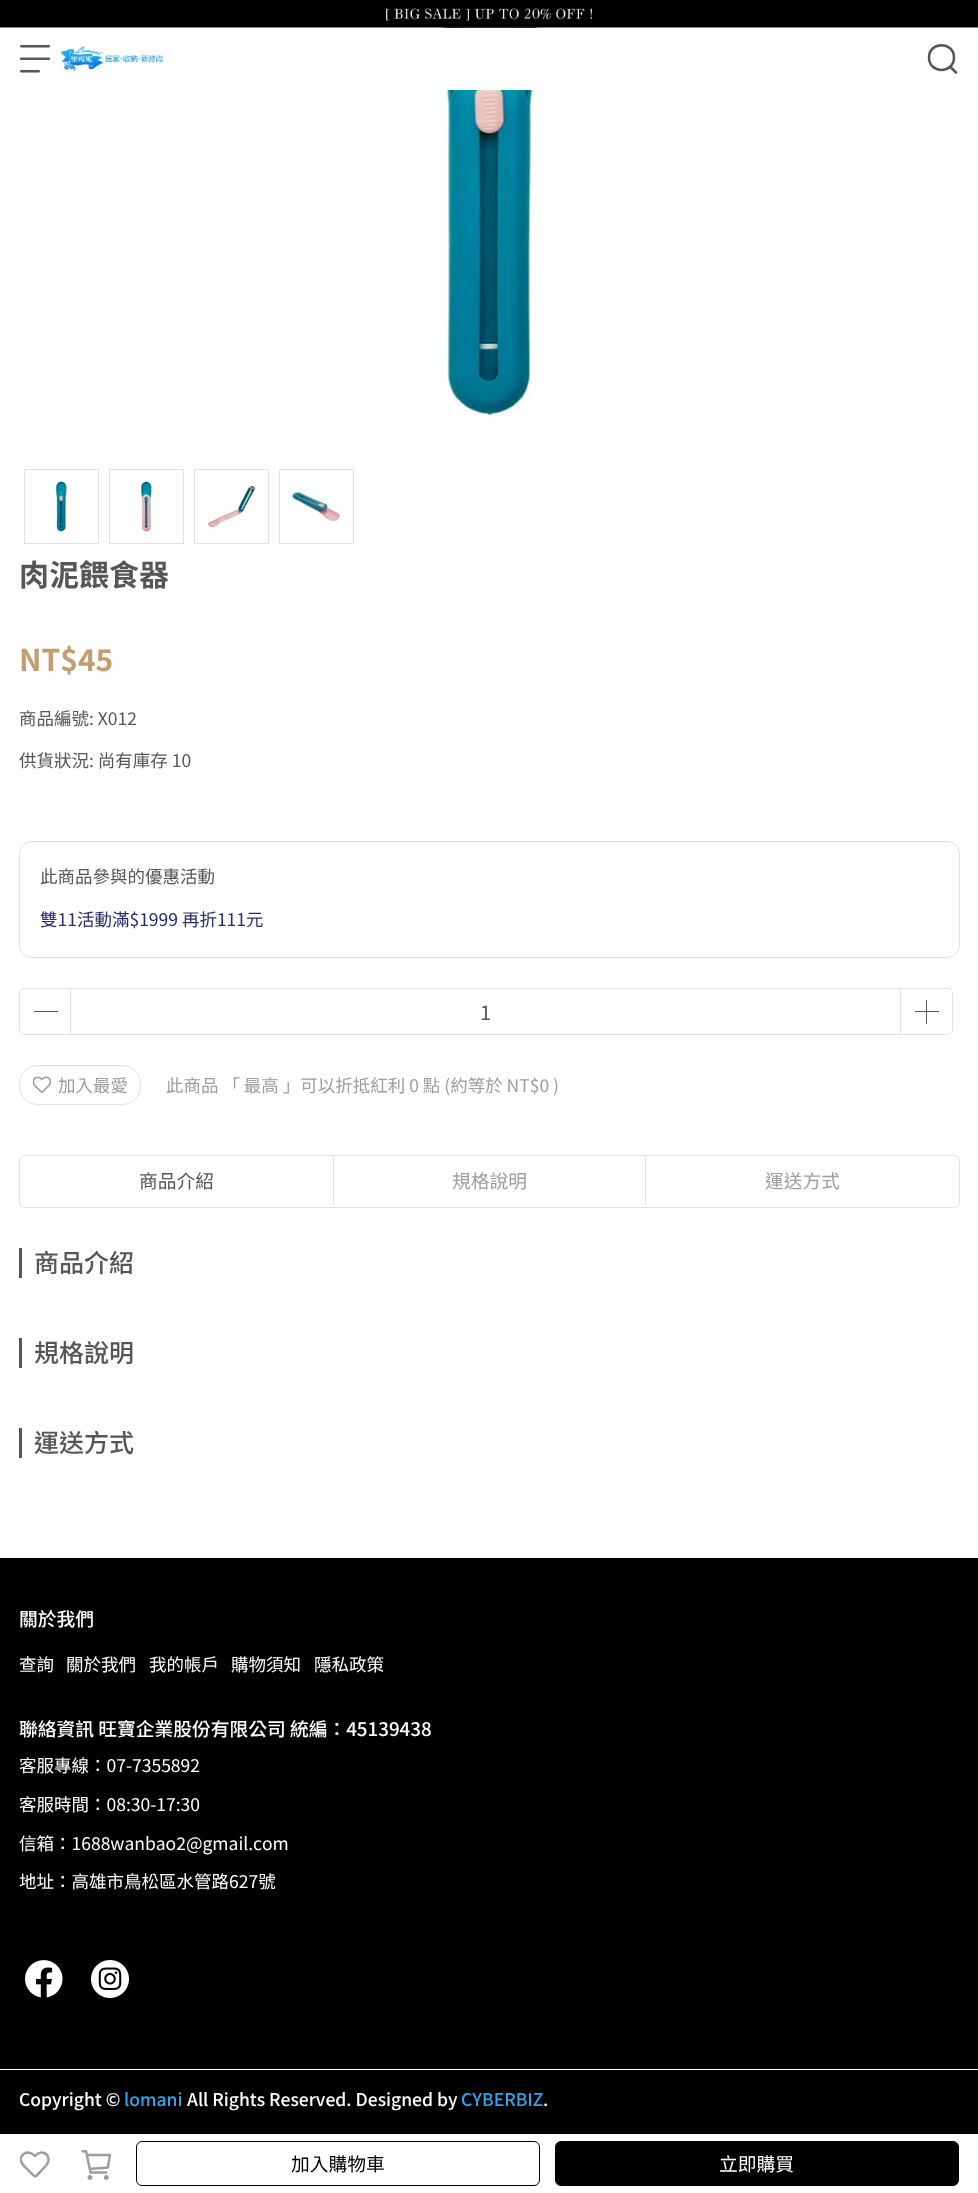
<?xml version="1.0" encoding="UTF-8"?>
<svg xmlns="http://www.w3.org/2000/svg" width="978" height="2193">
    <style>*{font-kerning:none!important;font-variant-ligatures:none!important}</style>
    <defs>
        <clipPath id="clip1"><rect x="20" y="2149" width="30" height="30"/></clipPath>
    </defs>
    <rect width="100%" height="100%" fill="#FFFFFF"/>
    <image x="441" y="27" width="98" height="392" href="img_04.png"/>
    <image x="0" y="0" width="978" height="28" href="img_01.png"/>
    <rect x="441" y="28" width="98" height="62" fill="#FFFFFF"/>
    <image x="20" y="45" width="30" height="28" href="img_02.png"/>
    <image x="60" y="42" width="104" height="31" href="img_03.png"/>
    <path d="M 954 57.5 C 954 74 929 74 929 57.5 C 929 41 954 41 954 57.5 Z M 951 67.5 L 956 72.5" fill="none" stroke="#565656" stroke-width="2.5" stroke-linecap="round" stroke-linejoin="round"/>
    <rect x="24.5" y="469.5" width="74" height="74" fill="none" stroke="#E2E2E2"/>
    <image x="56" y="481" width="11" height="51" href="img_05.png"/>
    <rect x="109.5" y="469.5" width="74" height="74" fill="none" stroke="#E2E2E2"/>
    <image x="141" y="481" width="11" height="51" href="img_06.png"/>
    <rect x="194.5" y="469.5" width="74" height="74" fill="none" stroke="#E2E2E2"/>
    <image x="207" y="485" width="48" height="43" href="img_07.png"/>
    <rect x="279.5" y="469.5" width="74" height="74" fill="none" stroke="#E2E2E2"/>
    <image x="292" y="491" width="48" height="31" href="img_08.png"/>
    <text x="19" y="586" font-family="Noto Sans TC" font-size="30" font-weight="700" fill="#565656">肉泥餵食器</text>
    <text x="19" y="671" font-family="Noto Sans TC" font-size="30" font-weight="700" fill="#C39D6F">NT$45</text>
    <text x="19" y="725" font-family="Noto Sans TC" font-size="17.5" fill="#565656">商品編號: X012</text>
    <text x="19" y="767" font-family="Noto Sans TC" font-size="17.5" fill="#565656">供貨狀況: 尚有庫存 10</text>
    <rect x="19.5" y="841.5" width="940" height="116" rx="12.5" fill="none" stroke="#E2E2E2"/>
    <text x="40" y="883" font-family="Noto Sans TC" font-size="17.5" fill="#565656">此商品參與的優惠活動</text>
    <text x="40" y="926" font-family="Noto Sans TC" font-size="17.5" fill="#2B2B6E">雙11活動滿$1999 再折111元</text>
    <path d="M 24 988.5 H 70.5 V 1034.5 H 24 C 21.5 1034.5 19.5 1032.5 19.5 1030 V 993 C 19.5 990.5 21.5 988.5 24 988.5 Z" fill="none" stroke="#E2E2E2"/>
    <rect x="34" y="1011" width="24" height="1" fill="#565656"/>
    <rect x="70.5" y="988.5" width="830" height="46" fill="none" stroke="#E2E2E2"/>
    <text x="480" y="1020" font-family="Noto Sans TC" font-size="20" fill="#565656">1</text>
    <path d="M 900.5 988.5 H 948 C 950.5 988.5 952.5 990.5 952.5 993 V 1030 C 952.5 1032.5 950.5 1034.5 948 1034.5 H 900.5 Z" fill="none" stroke="#E2E2E2"/>
    <rect x="915" y="1011" width="24" height="1" fill="#565656"/>
    <rect x="926" y="1000" width="1" height="24" fill="#565656"/>
    <rect x="19.5" y="1065.5" width="121" height="39" rx="18.5" fill="none" stroke="#E2E2E2"/>
    <image x="33" y="1076" width="18" height="17" href="img_09.png"/>
    <text x="58" y="1092" font-family="Noto Sans TC" font-size="17.5" fill="#9A9EA2">加入最愛</text>
    <text x="166" y="1092" font-family="Noto Sans TC" font-size="17.5" fill="#9A9EA2">此商品 「 最高 」可以折抵紅利 0 點 (約等於 NT$0 )</text>
    <g clip-path="url(#clip1)">
        <path d="M 46.5 2154.5 C 43 2151 38 2152.5 35 2156 C 27.5 2148 17 2155.5 22.5 2164 C 25 2167.5 28.5 2170 31 2173 C 36.5 2178 34.5 2177.5 40.5 2171.5 L 46.5 2165 C 49 2162 49.5 2157.5 46.5 2154.5 Z" fill="none" stroke="#9A9EA2" stroke-width="2.5" stroke-linecap="round" stroke-linejoin="round"/>
    </g>
    <image x="81" y="2150" width="30" height="30" href="img_10.png"/>
    <rect x="136.5" y="2141.5" width="403" height="44" rx="5.5" fill="none" stroke="#000000"/>
    <text x="291" y="2171" font-family="Noto Sans TC" font-size="18.75" fill="#000000">加入購物車</text>
    <rect x="555.5" y="2141.5" width="403" height="44" rx="5.5" fill="#000000" stroke="#000000"/>
    <text x="719" y="2171" font-family="Noto Sans TC" font-size="18.75" fill="#FFFFFF">立即購買</text>
    <rect x="19.5" y="1155.5" width="940" height="52" rx="5.5" fill="none" stroke="#E2E2E2"/>
    <text x="139" y="1188" font-family="Noto Sans TC" font-size="18.75" fill="#565656">商品介紹</text>
    <rect x="333" y="1156" width="1" height="50" fill="#E2E2E2"/>
    <text x="452" y="1188" font-family="Noto Sans TC" font-size="18.75" fill="#9A9EA2">規格說明</text>
    <rect x="645" y="1156" width="1" height="50" fill="#E2E2E2"/>
    <text x="765" y="1188" font-family="Noto Sans TC" font-size="18.75" fill="#9A9EA2">運送方式</text>
    <rect x="19" y="1248" width="3" height="30" fill="#565656"/>
    <text x="34" y="1272" font-family="Noto Sans TC" font-size="25" font-weight="500" fill="#565656">商品介紹</text>
    <rect x="19" y="1338" width="3" height="30" fill="#565656"/>
    <text x="34" y="1362" font-family="Noto Sans TC" font-size="25" font-weight="500" fill="#565656">規格說明</text>
    <rect x="19" y="1428" width="3" height="30" fill="#565656"/>
    <text x="34" y="1452" font-family="Noto Sans TC" font-size="25" font-weight="500" fill="#565656">運送方式</text>
    <rect x="0" y="1558" width="978" height="576" fill="#000000"/>
    <text x="19" y="1626" font-family="Noto Sans TC" font-size="18.75" font-weight="500" fill="#FFFFFF">關於我們</text>
    <text x="19" y="1671" font-family="Noto Sans TC" font-size="17.5" fill="#FFFFFF">查詢</text>
    <text x="66" y="1671" font-family="Noto Sans TC" font-size="17.5" fill="#FFFFFF">關於我們</text>
    <text x="149" y="1671" font-family="Noto Sans TC" font-size="17.5" fill="#FFFFFF">我的帳戶</text>
    <text x="231" y="1671" font-family="Noto Sans TC" font-size="17.5" fill="#FFFFFF">購物須知</text>
    <text x="314" y="1671" font-family="Noto Sans TC" font-size="17.5" fill="#FFFFFF">隱私政策</text>
    <text x="19" y="1736" font-family="Noto Sans TC" font-size="18.75" font-weight="500" fill="#FFFFFF">聯絡資訊 旺寶企業股份有限公司 統編：45139438</text>
    <text x="19" y="1772" font-family="Noto Sans TC" font-size="17.5" fill="#FFFFFF">客服專線：07-7355892</text>
    <text x="19" y="1811" font-family="Noto Sans TC" font-size="17.5" fill="#FFFFFF">客服時間：08:30-17:30</text>
    <text x="19" y="1850" font-family="Noto Sans TC" font-size="17.5" fill="#FFFFFF">信箱：1688wanbao2@gmail.com</text>
    <text x="19" y="1888" font-family="Noto Sans TC" font-size="17.5" fill="#FFFFFF">地址：高雄市鳥松區水管路627號</text>
    <image x="25" y="1960" width="38" height="38" href="img_11.png"/>
    <image x="91" y="1960" width="38" height="38" href="img_12.png"/>
    <rect x="0" y="2069" width="978" height="1" fill="#FFFFFF"/>
    <text x="19" y="2106" font-family="Noto Sans TC" font-size="17.5" font-weight="500" fill="#FFFFFF">Copyright ©</text>
    <text x="124" y="2106" font-family="Noto Sans TC" font-size="17.5" font-weight="500" fill="#33A4E8">lomani</text>
    <text x="187" y="2106" font-family="Noto Sans TC" font-size="17.5" font-weight="500" fill="#FFFFFF">All Rights Reserved. Designed by</text>
    <text x="461" y="2106" font-family="Noto Sans TC" font-size="17.5" font-weight="500" fill="#33A4E8">CYBERBIZ</text>
    <text x="543" y="2106" font-family="Noto Sans TC" font-size="17.5" font-weight="500" fill="#FFFFFF">.</text>
</svg>
